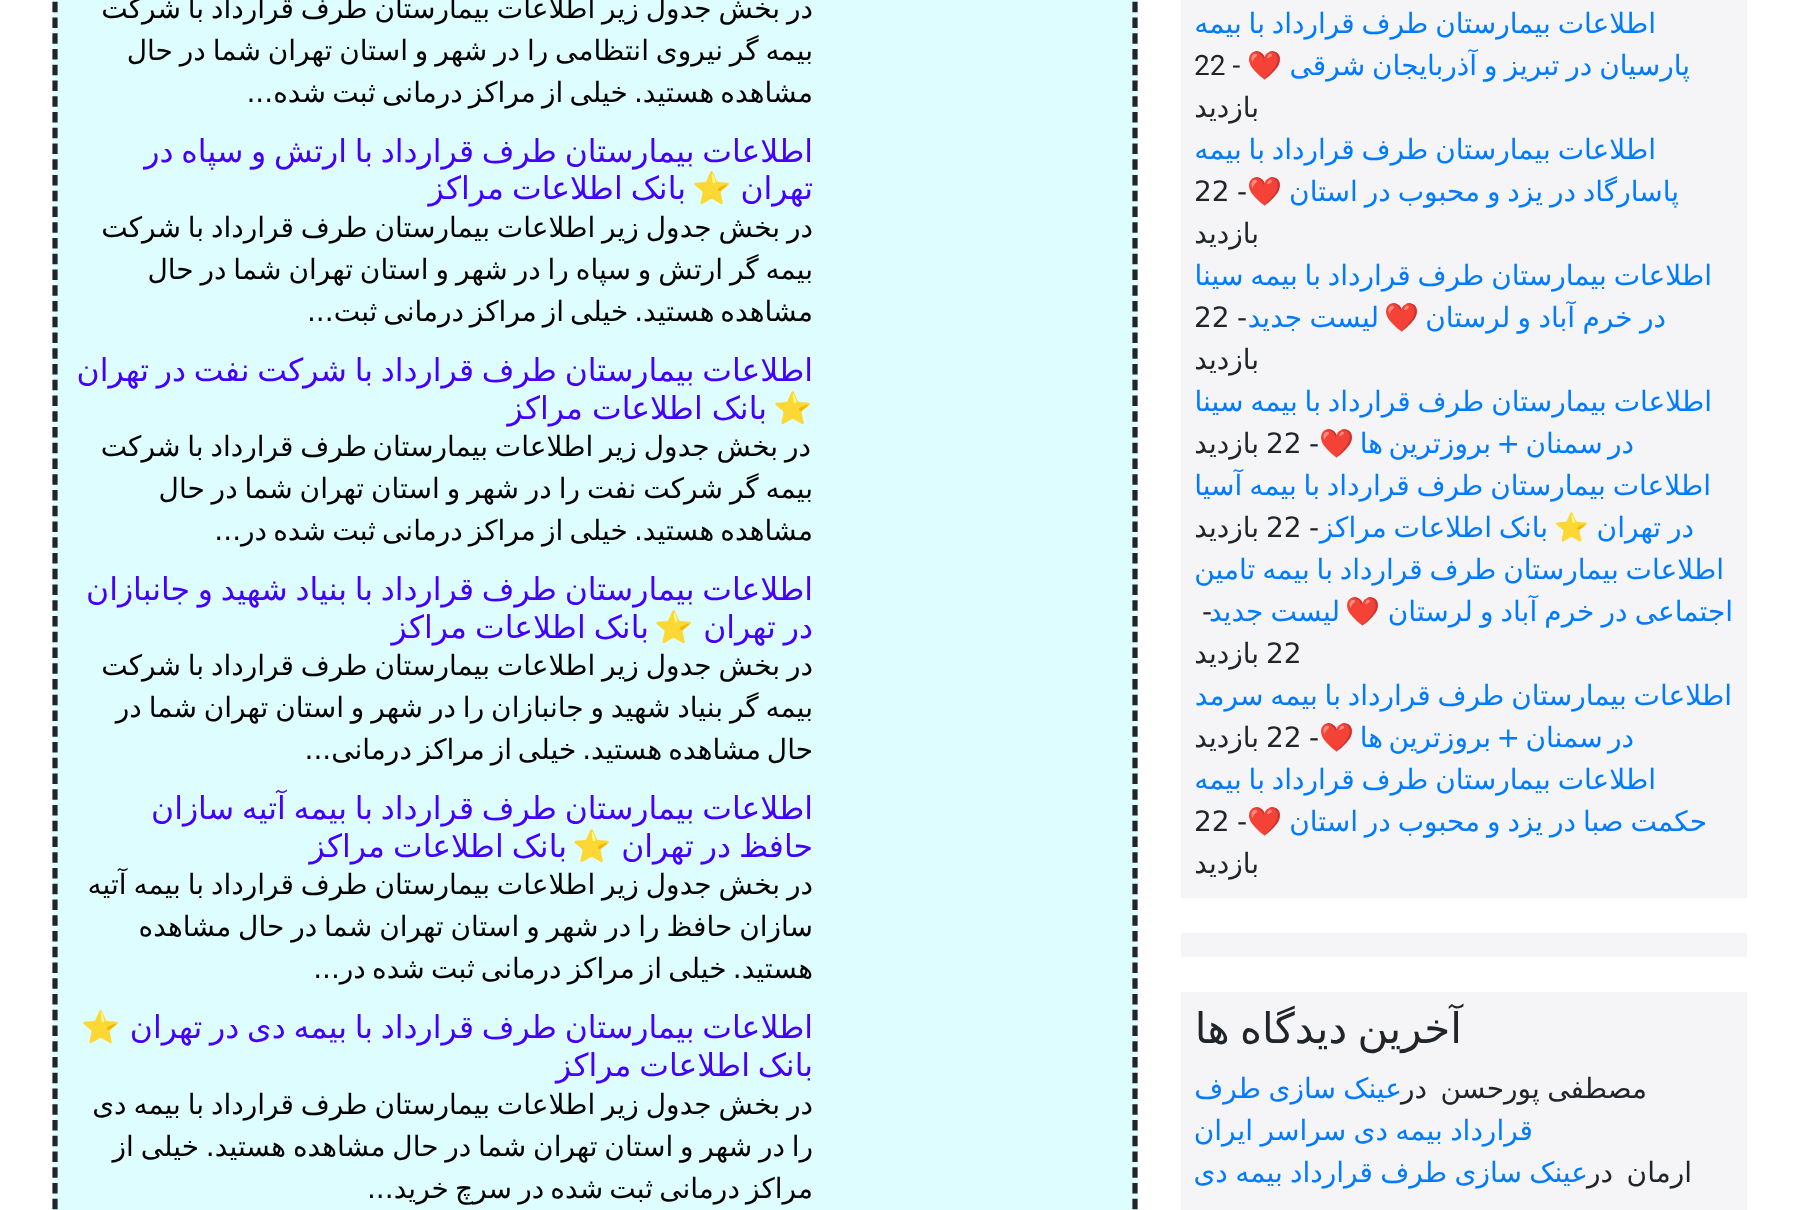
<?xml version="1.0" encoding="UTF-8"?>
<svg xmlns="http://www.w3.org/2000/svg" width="1798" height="1210">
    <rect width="100%" height="100%" fill="#FFFFFF"/>
    <rect x="1181" y="0" width="566" height="898" fill="#F5F5F7"/>
    <text x="1656" y="33" word-spacing="-2" font-family="DejaVu Sans" font-size="28" direction="rtl" fill="#007BFF">اطلاعات بیمارستان طرف قرارداد با بیمه</text>
    <text x="1690" y="75" word-spacing="-2" font-family="DejaVu Sans" font-size="28" direction="rtl" fill="#007BFF">پارسیان در تبریز و آذربایجان شرقی</text>
    <text x="1282" y="75" font-family="Noto Color Emoji" font-size="28" direction="rtl" fill="#007BFF">❤️</text>
    <text x="1194" y="75" font-family="Roboto" font-size="28" fill="#212529">22 -</text>
    <text x="1259" y="117" font-family="DejaVu Sans" font-size="28" direction="rtl" fill="#212529">بازدید</text>
    <text x="1656" y="159" word-spacing="-2" font-family="DejaVu Sans" font-size="28" direction="rtl" fill="#007BFF">اطلاعات بیمارستان طرف قرارداد با بیمه</text>
    <text x="1679" y="201" word-spacing="-2" font-family="DejaVu Sans" font-size="28" direction="rtl" fill="#007BFF">پاسارگاد در یزد و محبوب در استان</text>
    <text x="1282" y="201" font-family="Noto Color Emoji" font-size="28" direction="rtl" fill="#007BFF">❤️</text>
    <text x="1237" y="201" font-family="DejaVu Sans" font-size="28" fill="#212529">-</text>
    <text x="1194" y="201" font-family="DejaVu Sans" font-size="28" fill="#212529">22</text>
    <text x="1259" y="243" font-family="DejaVu Sans" font-size="28" direction="rtl" fill="#212529">بازدید</text>
    <text x="1712" y="285" word-spacing="-2" font-family="DejaVu Sans" font-size="28" direction="rtl" fill="#007BFF">اطلاعات بیمارستان طرف قرارداد با بیمه سینا</text>
    <text x="1666" y="327" word-spacing="-1.5" font-family="DejaVu Sans" font-size="28" direction="rtl" fill="#007BFF">در خرم آباد و لرستان</text>
    <text x="1419" y="327" font-family="Noto Color Emoji" font-size="28" direction="rtl" fill="#007BFF">❤️</text>
    <text x="1379" y="327" word-spacing="-1.5" font-family="DejaVu Sans" font-size="28" direction="rtl" fill="#007BFF">لیست جدید</text>
    <text x="1237" y="327" font-family="DejaVu Sans" font-size="28" fill="#212529">-</text>
    <text x="1194" y="327" font-family="DejaVu Sans" font-size="28" fill="#212529">22</text>
    <text x="1259" y="369" font-family="DejaVu Sans" font-size="28" direction="rtl" fill="#212529">بازدید</text>
    <text x="1712" y="411" word-spacing="-2" font-family="DejaVu Sans" font-size="28" direction="rtl" fill="#007BFF">اطلاعات بیمارستان طرف قرارداد با بیمه سینا</text>
    <text x="1634" y="453" word-spacing="-3.5" font-family="DejaVu Sans" font-size="28" direction="rtl" fill="#007BFF">در سمنان + بروزترین ها</text>
    <text x="1354" y="453" font-family="Noto Color Emoji" font-size="28" direction="rtl" fill="#007BFF">❤️</text>
    <text x="1309" y="453" font-family="DejaVu Sans" font-size="28" fill="#212529">-</text>
    <text x="1266" y="453" font-family="DejaVu Sans" font-size="28" fill="#212529">22</text>
    <text x="1259" y="453" font-family="DejaVu Sans" font-size="28" direction="rtl" fill="#212529">بازدید</text>
    <text x="1711" y="495" word-spacing="-2" font-family="DejaVu Sans" font-size="28" direction="rtl" fill="#007BFF">اطلاعات بیمارستان طرف قرارداد با بیمه آسیا</text>
    <text x="1694" y="537" word-spacing="-2" font-family="DejaVu Sans" font-size="28" direction="rtl" fill="#007BFF">در تهران</text>
    <text x="1589" y="537" font-family="Noto Color Emoji" font-size="28" direction="rtl" fill="#007BFF">⭐️</text>
    <text x="1548" y="537" word-spacing="-2" font-family="DejaVu Sans" font-size="28" direction="rtl" fill="#007BFF">بانک اطلاعات مراکز</text>
    <text x="1309" y="537" font-family="DejaVu Sans" font-size="28" fill="#212529">-</text>
    <text x="1266" y="537" font-family="DejaVu Sans" font-size="28" fill="#212529">22</text>
    <text x="1259" y="537" font-family="DejaVu Sans" font-size="28" direction="rtl" fill="#212529">بازدید</text>
    <text x="1724" y="579" word-spacing="-2" font-family="DejaVu Sans" font-size="28" direction="rtl" fill="#007BFF">اطلاعات بیمارستان طرف قرارداد با بیمه تامین</text>
    <text x="1733" y="621" word-spacing="-1.75" font-family="DejaVu Sans" font-size="28" direction="rtl" fill="#007BFF">اجتماعی در خرم آباد و لرستان</text>
    <text x="1380" y="621" font-family="Noto Color Emoji" font-size="28" direction="rtl" fill="#007BFF">❤️</text>
    <text x="1340" y="621" word-spacing="-1.75" font-family="DejaVu Sans" font-size="28" direction="rtl" fill="#007BFF">لیست جدید</text>
    <text x="1202" y="621" font-family="DejaVu Sans" font-size="28" fill="#212529">-</text>
    <text x="1266" y="663" font-family="DejaVu Sans" font-size="28" fill="#212529">22</text>
    <text x="1259" y="663" font-family="DejaVu Sans" font-size="28" direction="rtl" fill="#212529">بازدید</text>
    <text x="1732" y="705" word-spacing="-2" font-family="DejaVu Sans" font-size="28" direction="rtl" fill="#007BFF">اطلاعات بیمارستان طرف قرارداد با بیمه سرمد</text>
    <text x="1634" y="747" word-spacing="-3.5" font-family="DejaVu Sans" font-size="28" direction="rtl" fill="#007BFF">در سمنان + بروزترین ها</text>
    <text x="1354" y="747" font-family="Noto Color Emoji" font-size="28" direction="rtl" fill="#007BFF">❤️</text>
    <text x="1309" y="747" font-family="DejaVu Sans" font-size="28" fill="#212529">-</text>
    <text x="1266" y="747" font-family="DejaVu Sans" font-size="28" fill="#212529">22</text>
    <text x="1259" y="747" font-family="DejaVu Sans" font-size="28" direction="rtl" fill="#212529">بازدید</text>
    <text x="1656" y="789" word-spacing="-2" font-family="DejaVu Sans" font-size="28" direction="rtl" fill="#007BFF">اطلاعات بیمارستان طرف قرارداد با بیمه</text>
    <text x="1707" y="831" word-spacing="-2" font-family="DejaVu Sans" font-size="28" direction="rtl" fill="#007BFF">حکمت صبا در یزد و محبوب در استان</text>
    <text x="1282" y="831" font-family="Noto Color Emoji" font-size="28" direction="rtl" fill="#007BFF">❤️</text>
    <text x="1237" y="831" font-family="DejaVu Sans" font-size="28" fill="#212529">-</text>
    <text x="1194" y="831" font-family="DejaVu Sans" font-size="28" fill="#212529">22</text>
    <text x="1259" y="873" font-family="DejaVu Sans" font-size="28" direction="rtl" fill="#212529">بازدید</text>
    <rect x="1181" y="933" width="566" height="24" fill="#F5F5F7"/>
    <rect x="1181" y="992" width="566" height="218" fill="#F5F5F7"/>
    <text x="1462" y="1043" word-spacing="-3" font-family="DejaVu Sans" font-size="42" direction="rtl" fill="#212529">آخرین دیدگاه ها</text>
    <text x="1647" y="1098" word-spacing="-1.5" font-family="DejaVu Sans" font-size="28" direction="rtl" fill="#212529">مصطفی پورحسن</text>
    <text x="1427" y="1098" font-family="DejaVu Sans" font-size="28" direction="rtl" fill="#212529">در</text>
    <text x="1402" y="1098" word-spacing="-1.5" font-family="DejaVu Sans" font-size="28" direction="rtl" fill="#007BFF">عینک سازی طرف</text>
    <text x="1533" y="1140" word-spacing="-1.5" font-family="DejaVu Sans" font-size="28" direction="rtl" fill="#007BFF">قرارداد بیمه دی سراسر ایران</text>
    <text x="1692" y="1182" font-family="DejaVu Sans" font-size="28" direction="rtl" fill="#212529">ارمان</text>
    <text x="1613" y="1182" font-family="DejaVu Sans" font-size="28" direction="rtl" fill="#212529">در</text>
    <text x="1588" y="1182" word-spacing="-1.5" font-family="DejaVu Sans" font-size="28" direction="rtl" fill="#007BFF">عینک سازی طرف قرارداد بیمه دی</text>
    <rect x="53" y="0" width="1085" height="1210" fill="#DEFDFF"/>
    <path d="M 1135 -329 V 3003" fill="none" stroke="#212529" stroke-width="5.2" stroke-dasharray="10.5 5.25"/>
    <path d="M 55 -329 V 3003" fill="none" stroke="#212529" stroke-width="5.2" stroke-dasharray="10.5 5.25"/>
    <text font-family="DejaVu Sans" font-size="28" direction="rtl" fill="#000000">
        <tspan x="813" y="18" word-spacing="-2">در بخش جدول زیر اطلاعات بیمارستان طرف قرارداد با شرکت</tspan>
        <tspan x="813" y="60" word-spacing="-2">بیمه گر نیروی انتظامی را در شهر و استان تهران شما در حال</tspan>
        <tspan x="813" y="102" word-spacing="-2.75">مشاهده هستید. خیلی از مراکز درمانی ثبت شده...</tspan>
    </text>
    <text font-family="DejaVu Sans" font-size="31.5" direction="rtl" fill="#4400FF">
        <tspan x="813" y="162" word-spacing="-2.25">اطلاعات بیمارستان طرف قرارداد با ارتش و سپاه در</tspan>
        <tspan x="813" y="199">تهران</tspan>
    </text>
    <text x="732" y="199" font-family="Noto Color Emoji" font-size="31.5" direction="rtl" fill="#4400FF">⭐️</text>
    <text x="686" y="199" word-spacing="-2" font-family="DejaVu Sans" font-size="31.5" direction="rtl" fill="#4400FF">بانک اطلاعات مراکز</text>
    <text font-family="DejaVu Sans" font-size="28" direction="rtl" fill="#000000">
        <tspan x="813" y="237" word-spacing="-2">در بخش جدول زیر اطلاعات بیمارستان طرف قرارداد با شرکت</tspan>
        <tspan x="813" y="279" word-spacing="-2">بیمه گر ارتش و سپاه را در شهر و استان تهران شما در حال</tspan>
        <tspan x="813" y="321" word-spacing="-3">مشاهده هستید. خیلی از مراکز درمانی ثبت...</tspan>
    </text>
    <text x="813" y="381" word-spacing="-2.25" font-family="DejaVu Sans" font-size="31.5" direction="rtl" fill="#4400FF">اطلاعات بیمارستان طرف قرارداد با شرکت نفت در تهران</text>
    <text x="813" y="419" font-family="Noto Color Emoji" font-size="31.5" direction="rtl" fill="#4400FF">⭐️</text>
    <text x="767" y="419" word-spacing="-1" font-family="DejaVu Sans" font-size="31.5" direction="rtl" fill="#4400FF">بانک اطلاعات مراکز</text>
    <text x="811" y="456" word-spacing="-2" font-family="DejaVu Sans" font-size="28" direction="rtl" fill="#000000">در بخش جدول زیر اطلاعات بیمارستان</text>
    <text x="367" y="456" word-spacing="-2" font-family="DejaVu Sans" font-size="28" direction="rtl" fill="#000000">طرف قرارداد با شرکت</text>
    <text font-family="DejaVu Sans" font-size="28" direction="rtl" fill="#000000">
        <tspan x="813" y="498" word-spacing="-2">بیمه گر شرکت نفت را در شهر و استان تهران شما در حال</tspan>
        <tspan x="813" y="540" word-spacing="-2.75">مشاهده هستید. خیلی از مراکز درمانی ثبت شده در...</tspan>
    </text>
    <text font-family="DejaVu Sans" font-size="31.5" direction="rtl" fill="#4400FF">
        <tspan x="813" y="600" word-spacing="-2.25">اطلاعات بیمارستان طرف قرارداد با بنیاد شهید و جانبازان</tspan>
        <tspan x="813" y="638" word-spacing="-2">در تهران</tspan>
    </text>
    <text x="694" y="638" font-family="Noto Color Emoji" font-size="31.5" direction="rtl" fill="#4400FF">⭐️</text>
    <text x="649" y="638" word-spacing="-2" font-family="DejaVu Sans" font-size="31.5" direction="rtl" fill="#4400FF">بانک اطلاعات مراکز</text>
    <text font-family="DejaVu Sans" font-size="28" direction="rtl" fill="#000000">
        <tspan x="813" y="675" word-spacing="-2">در بخش جدول زیر اطلاعات بیمارستان طرف قرارداد با شرکت</tspan>
        <tspan x="813" y="717" word-spacing="-2">بیمه گر بنیاد شهید و جانبازان را در شهر و استان تهران شما در</tspan>
        <tspan x="813" y="759" word-spacing="-3">حال مشاهده هستید. خیلی از مراکز درمانی...</tspan>
    </text>
    <text font-family="DejaVu Sans" font-size="31.5" direction="rtl" fill="#4400FF">
        <tspan x="813" y="819" word-spacing="-2.25">اطلاعات بیمارستان طرف قرارداد با بیمه آتیه سازان</tspan>
        <tspan x="813" y="857" word-spacing="-2">حافظ در تهران</tspan>
    </text>
    <text x="612" y="857" font-family="Noto Color Emoji" font-size="31.5" direction="rtl" fill="#4400FF">⭐️</text>
    <text x="567" y="857" word-spacing="-2" font-family="DejaVu Sans" font-size="31.5" direction="rtl" fill="#4400FF">بانک اطلاعات مراکز</text>
    <text font-family="DejaVu Sans" font-size="28" direction="rtl" fill="#000000">
        <tspan x="813" y="894" word-spacing="-2">در بخش جدول زیر اطلاعات بیمارستان طرف قرارداد با بیمه آتیه</tspan>
        <tspan x="813" y="936" word-spacing="-2">سازان حافظ را در شهر و استان تهران شما در حال مشاهده</tspan>
        <tspan x="813" y="978" word-spacing="-2.75">هستید. خیلی از مراکز درمانی ثبت شده در...</tspan>
    </text>
    <text x="813" y="1038" word-spacing="-2.25" font-family="DejaVu Sans" font-size="31.5" direction="rtl" fill="#4400FF">اطلاعات بیمارستان طرف قرارداد با بیمه دی در تهران</text>
    <text x="121" y="1038" font-family="Noto Color Emoji" font-size="31.5" direction="rtl" fill="#4400FF">⭐️</text>
    <text x="813" y="1076" word-spacing="-2.25" font-family="DejaVu Sans" font-size="31.5" direction="rtl" fill="#4400FF">بانک اطلاعات مراکز</text>
    <text font-family="DejaVu Sans" font-size="28" direction="rtl" fill="#000000">
        <tspan x="813" y="1114" word-spacing="-2">در بخش جدول زیر اطلاعات بیمارستان طرف قرارداد با بیمه دی</tspan>
        <tspan x="813" y="1156" word-spacing="-2.1">را در شهر و استان تهران شما در حال مشاهده هستید. خیلی از</tspan>
        <tspan x="813" y="1198" word-spacing="-2.75">مراکز درمانی ثبت شده در سرچ خرید...</tspan>
    </text>
</svg>
